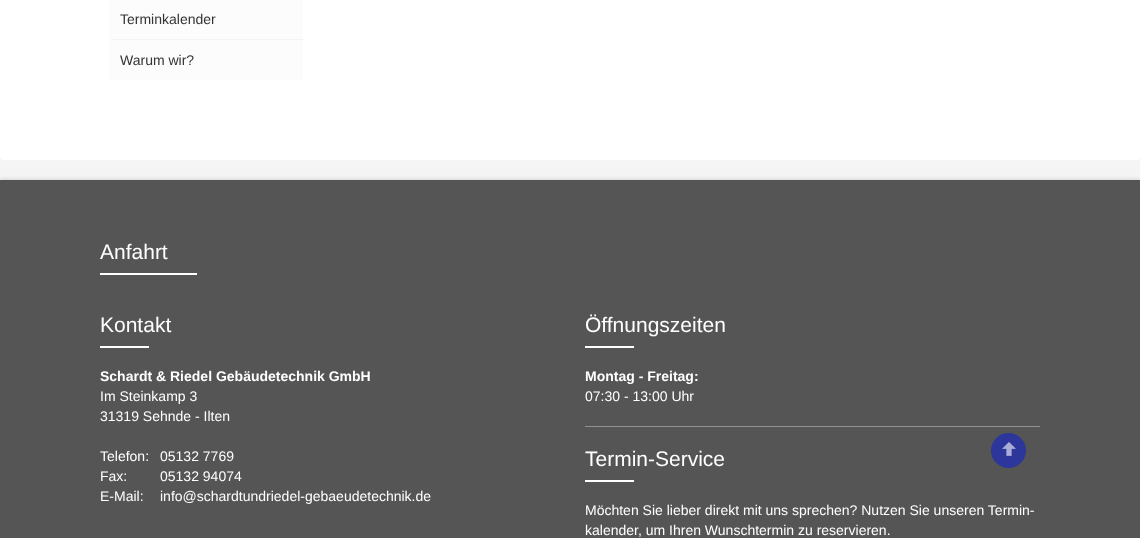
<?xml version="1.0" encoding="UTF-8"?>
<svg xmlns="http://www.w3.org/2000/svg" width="1140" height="538">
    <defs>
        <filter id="blur1" x="-50%" y="-200%" width="200%" height="500%"><feGaussianBlur stdDeviation="2.5"/></filter>
    </defs>
    <rect width="100%" height="100%" fill="#F5F5F5"/>
    <path d="M 0 -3 H 1140 V 157 C 1140 158.5 1138.5 160 1137 160 H 3 C 1.5 160 0 158.5 0 157 Z" fill="#FFFFFF"/>
    <rect x="110" y="0" width="193" height="80" fill="#FCFCFC"/>
    <path d="M 110 39.5 H 303" fill="none" stroke="#EEEEEE" stroke-dasharray="1 1"/>
    <text x="120" y="24" font-family="Liberation Sans" font-size="14" fill="#333333">Terminkalender</text>
    <text x="120" y="65" font-family="Liberation Sans" font-size="14" fill="#333333">Warum wir?</text>
    <rect x="0" y="180" width="1140" height="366" fill="#000000" fill-opacity="0.2" filter="url(#blur1)"/>
    <rect x="0" y="180" width="1140" height="358" fill="#555555"/>
    <text x="100" y="259" font-family="Liberation Sans" font-size="21" fill="#FFFFFF">Anfahrt</text>
    <rect x="100" y="273" width="97" height="2" fill="#FFFFFF"/>
    <text x="100" y="332" font-family="Liberation Sans" font-size="21" fill="#FFFFFF">Kontakt</text>
    <rect x="100" y="346" width="49" height="2" fill="#FFFFFF"/>
    <text x="100" y="381" font-family="Liberation Sans" font-size="14" font-weight="700" fill="#FFFFFF">Schardt &amp; Riedel Gebäudetechnik GmbH</text>
    <text font-family="Liberation Sans" font-size="14" fill="#FFFFFF">
        <tspan x="100" y="401">Im Steinkamp 3</tspan>
        <tspan x="100" y="421">31319 Sehnde - Ilten</tspan>
    </text>
    <text x="100" y="461" font-family="Liberation Sans" font-size="14" fill="#FFFFFF">Telefon:</text>
    <text x="160" y="461" font-family="Liberation Sans" font-size="14" fill="#FFFFFF">05132 7769</text>
    <text x="100" y="481" font-family="Liberation Sans" font-size="14" fill="#FFFFFF">Fax:</text>
    <text x="160" y="481" font-family="Liberation Sans" font-size="14" fill="#FFFFFF">05132 94074</text>
    <text x="100" y="501" font-family="Liberation Sans" font-size="14" fill="#FFFFFF">E-Mail:</text>
    <text x="160" y="501" font-family="Liberation Sans" font-size="14" fill="#FFFFFF">info@schardtundriedel-gebaeudetechnik.de</text>
    <text x="585" y="332" font-family="Liberation Sans" font-size="21" fill="#FFFFFF">Öffnungszeiten</text>
    <rect x="585" y="346" width="49" height="2" fill="#FFFFFF"/>
    <text x="585" y="381" font-family="Liberation Sans" font-size="14" font-weight="700" fill="#FFFFFF">Montag - Freitag:</text>
    <text x="585" y="401" font-family="Liberation Sans" font-size="14" fill="#FFFFFF">07:30 - 13:00 Uhr</text>
    <rect x="585" y="426" width="455" height="1" fill="#929292"/>
    <text x="585" y="466" font-family="Liberation Sans" font-size="21" fill="#FFFFFF">Termin-Service</text>
    <rect x="585" y="480" width="49" height="2" fill="#FFFFFF"/>
    <text font-family="Liberation Sans" font-size="14" fill="#FFFFFF">
        <tspan x="585" y="515">Möchten Sie lieber direkt mit uns sprechen? Nutzen Sie unseren Termin-</tspan>
        <tspan x="585" y="535">kalender, um Ihren Wunschtermin zu reservieren.</tspan>
    </text>
    <circle cx="1008.5" cy="450.5" r="17.5" fill="#2C369B"/>
    <image x="1002" y="442" width="14" height="14" href="img_01.png"/>
</svg>
